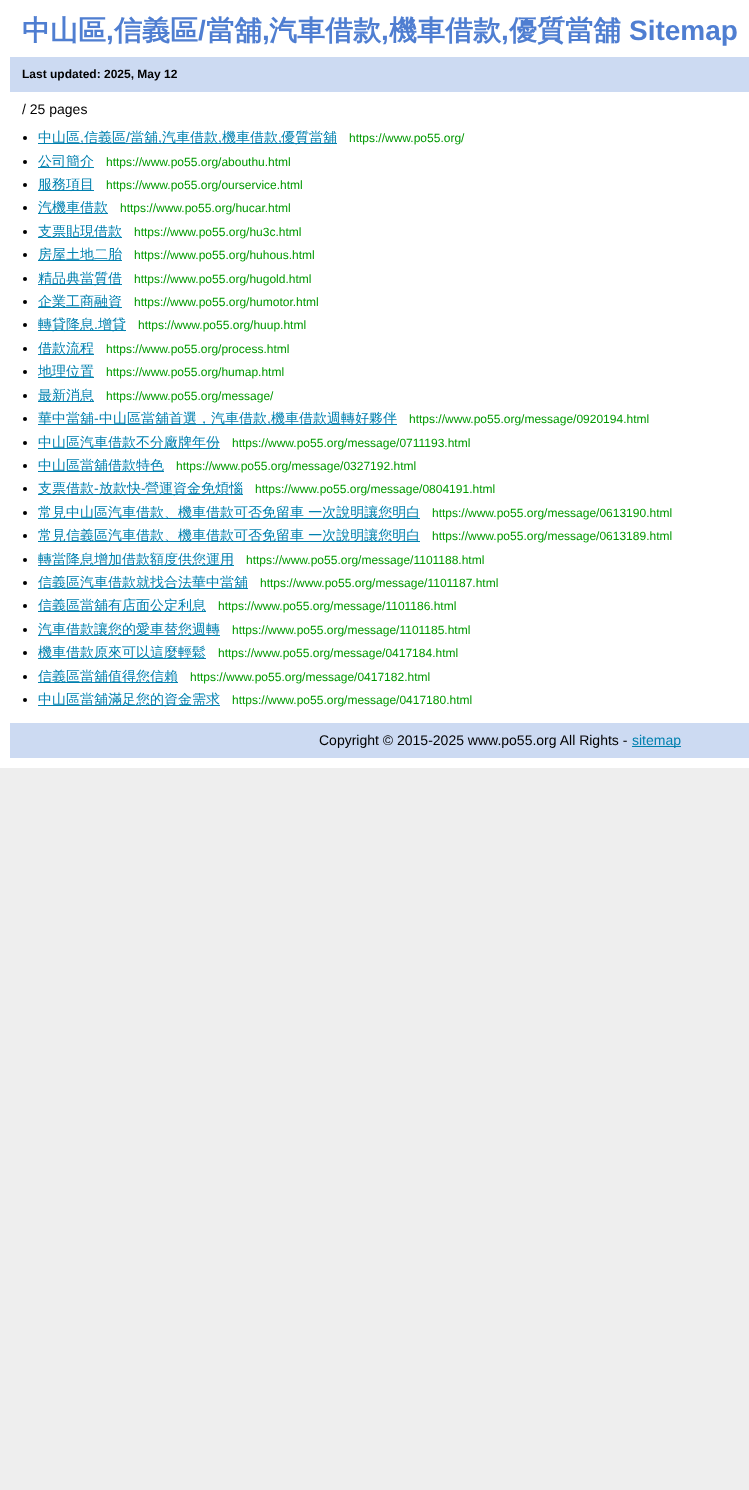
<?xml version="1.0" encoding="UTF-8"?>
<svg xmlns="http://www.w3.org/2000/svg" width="749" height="1490">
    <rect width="100%" height="100%" fill="#EEEEEE"/>
    <rect x="0" y="0" width="749" height="768" fill="#FFFFFF"/>
    <text x="22" y="40" font-family="WenQuanYi Zen Hei" font-size="28" font-weight="700" fill="#4F7ED1">中山區</text>
    <text x="106" y="40" font-family="Liberation Sans" font-size="28" font-weight="700" fill="#4F7ED1">,</text>
    <text x="114" y="40" font-family="WenQuanYi Zen Hei" font-size="28" font-weight="700" fill="#4F7ED1">信義區</text>
    <text x="198" y="40" font-family="Liberation Sans" font-size="28" font-weight="700" fill="#4F7ED1">/</text>
    <text x="206" y="40" font-family="WenQuanYi Zen Hei" font-size="28" font-weight="700" fill="#4F7ED1">當舖</text>
    <text x="262" y="40" font-family="Liberation Sans" font-size="28" font-weight="700" fill="#4F7ED1">,</text>
    <text x="269" y="40" font-family="WenQuanYi Zen Hei" font-size="28" font-weight="700" fill="#4F7ED1">汽車借款</text>
    <text x="381" y="40" font-family="Liberation Sans" font-size="28" font-weight="700" fill="#4F7ED1">,</text>
    <text x="389" y="40" font-family="WenQuanYi Zen Hei" font-size="28" font-weight="700" fill="#4F7ED1">機車借款</text>
    <text x="501" y="40" font-family="Liberation Sans" font-size="28" font-weight="700" fill="#4F7ED1">,</text>
    <text x="509" y="40" font-family="WenQuanYi Zen Hei" font-size="28" font-weight="700" fill="#4F7ED1">優質當舖</text>
    <text x="629" y="40" font-family="Liberation Sans" font-size="28" font-weight="700" fill="#4F7ED1">Sitemap</text>
    <rect x="10" y="57" width="739" height="35" fill="#CCDAF2"/>
    <text x="22" y="78" font-family="Liberation Sans" font-size="12" font-weight="700" fill="#000000">Last updated: 2025, May 12</text>
    <text x="22" y="114" font-family="Liberation Sans" font-size="14" fill="#000000">/ 25 pages</text>
    <circle cx="25" cy="138" r="2" fill="#000000"/>
    <rect x="38" y="143" width="299" height="1" fill="#0180AF"/>
    <text x="38" y="142" font-family="WenQuanYi Zen Hei" font-size="14" font-weight="500" fill="#0180AF">中山區</text>
    <text x="84" y="142" font-family="WenQuanYi Zen Hei" font-size="14" font-weight="500" fill="#0180AF">信義區</text>
    <text x="126" y="142" font-family="Liberation Sans" font-size="14" fill="#0180AF">/</text>
    <text x="130" y="142" font-family="WenQuanYi Zen Hei" font-size="14" font-weight="500" fill="#0180AF">當舖</text>
    <text x="162" y="142" font-family="WenQuanYi Zen Hei" font-size="14" font-weight="500" fill="#0180AF">汽車借款</text>
    <text x="222" y="142" font-family="WenQuanYi Zen Hei" font-size="14" font-weight="500" fill="#0180AF">機車借款</text>
    <text x="281" y="142" font-family="WenQuanYi Zen Hei" font-size="14" font-weight="500" fill="#0180AF">優質當舖</text>
    <text x="349" y="142" font-family="Liberation Sans" font-size="12" fill="#009900">https://www.po55.org/</text>
    <text x="80" y="142" font-family="Liberation Sans" font-size="14" fill="#0180AF">,</text>
    <text x="158" y="142" font-family="Liberation Sans" font-size="14" fill="#0180AF">,</text>
    <text x="218" y="142" font-family="Liberation Sans" font-size="14" fill="#0180AF">,</text>
    <text x="278" y="142" font-family="Liberation Sans" font-size="14" fill="#0180AF">,</text>
    <circle cx="25" cy="162" r="2" fill="#000000"/>
    <rect x="38" y="167" width="56" height="1" fill="#0180AF"/>
    <text x="38" y="166" font-family="WenQuanYi Zen Hei" font-size="14" font-weight="500" fill="#0180AF">公司簡介</text>
    <text x="106" y="166" font-family="Liberation Sans" font-size="12" fill="#009900">https://www.po55.org/abouthu.html</text>
    <circle cx="25" cy="185" r="2" fill="#000000"/>
    <rect x="38" y="190" width="56" height="1" fill="#0180AF"/>
    <text x="38" y="189" font-family="WenQuanYi Zen Hei" font-size="14" font-weight="500" fill="#0180AF">服務項目</text>
    <text x="106" y="189" font-family="Liberation Sans" font-size="12" fill="#009900">https://www.po55.org/ourservice.html</text>
    <circle cx="25" cy="208" r="2" fill="#000000"/>
    <rect x="38" y="213" width="70" height="1" fill="#0180AF"/>
    <text x="38" y="212" font-family="WenQuanYi Zen Hei" font-size="14" font-weight="500" fill="#0180AF">汽機車借款</text>
    <text x="120" y="212" font-family="Liberation Sans" font-size="12" fill="#009900">https://www.po55.org/hucar.html</text>
    <circle cx="25" cy="232" r="2" fill="#000000"/>
    <rect x="38" y="237" width="84" height="1" fill="#0180AF"/>
    <text x="38" y="236" font-family="WenQuanYi Zen Hei" font-size="14" font-weight="500" fill="#0180AF">支票貼現借款</text>
    <text x="134" y="236" font-family="Liberation Sans" font-size="12" fill="#009900">https://www.po55.org/hu3c.html</text>
    <circle cx="25" cy="255" r="2" fill="#000000"/>
    <rect x="38" y="260" width="84" height="1" fill="#0180AF"/>
    <text x="38" y="259" font-family="WenQuanYi Zen Hei" font-size="14" font-weight="500" fill="#0180AF">房屋土地二胎</text>
    <text x="134" y="259" font-family="Liberation Sans" font-size="12" fill="#009900">https://www.po55.org/huhous.html</text>
    <circle cx="25" cy="279" r="2" fill="#000000"/>
    <rect x="38" y="284" width="84" height="1" fill="#0180AF"/>
    <text x="38" y="283" font-family="WenQuanYi Zen Hei" font-size="14" font-weight="500" fill="#0180AF">精品典當質借</text>
    <text x="134" y="283" font-family="Liberation Sans" font-size="12" fill="#009900">https://www.po55.org/hugold.html</text>
    <circle cx="25" cy="302" r="2" fill="#000000"/>
    <rect x="38" y="307" width="84" height="1" fill="#0180AF"/>
    <text x="38" y="306" font-family="WenQuanYi Zen Hei" font-size="14" font-weight="500" fill="#0180AF">企業工商融資</text>
    <text x="134" y="306" font-family="Liberation Sans" font-size="12" fill="#009900">https://www.po55.org/humotor.html</text>
    <circle cx="25" cy="325" r="2" fill="#000000"/>
    <rect x="38" y="330" width="88" height="1" fill="#0180AF"/>
    <text x="38" y="329" font-family="WenQuanYi Zen Hei" font-size="14" font-weight="500" fill="#0180AF">轉貸降息</text>
    <text x="98" y="329" font-family="WenQuanYi Zen Hei" font-size="14" font-weight="500" fill="#0180AF">增貸</text>
    <text x="138" y="329" font-family="Liberation Sans" font-size="12" fill="#009900">https://www.po55.org/huup.html</text>
    <text x="94" y="329" font-family="Liberation Sans" font-size="14" fill="#0180AF">.</text>
    <circle cx="25" cy="349" r="2" fill="#000000"/>
    <rect x="38" y="354" width="56" height="1" fill="#0180AF"/>
    <text x="38" y="353" font-family="WenQuanYi Zen Hei" font-size="14" font-weight="500" fill="#0180AF">借款流程</text>
    <text x="106" y="353" font-family="Liberation Sans" font-size="12" fill="#009900">https://www.po55.org/process.html</text>
    <circle cx="25" cy="372" r="2" fill="#000000"/>
    <rect x="38" y="377" width="56" height="1" fill="#0180AF"/>
    <text x="38" y="376" font-family="WenQuanYi Zen Hei" font-size="14" font-weight="500" fill="#0180AF">地理位置</text>
    <text x="106" y="376" font-family="Liberation Sans" font-size="12" fill="#009900">https://www.po55.org/humap.html</text>
    <circle cx="25" cy="396" r="2" fill="#000000"/>
    <rect x="38" y="401" width="56" height="1" fill="#0180AF"/>
    <text x="38" y="400" font-family="WenQuanYi Zen Hei" font-size="14" font-weight="500" fill="#0180AF">最新消息</text>
    <text x="106" y="400" font-family="Liberation Sans" font-size="12" fill="#009900">https://www.po55.org/message/</text>
    <circle cx="25" cy="419" r="2" fill="#000000"/>
    <rect x="38" y="424" width="359" height="1" fill="#0180AF"/>
    <text x="38" y="423" font-family="WenQuanYi Zen Hei" font-size="14" font-weight="500" fill="#0180AF">華中當舖</text>
    <text x="94" y="423" font-family="Liberation Sans" font-size="14" fill="#0180AF">-</text>
    <text x="99" y="423" font-family="WenQuanYi Zen Hei" font-size="14" font-weight="500" fill="#0180AF">中山區當舖首選，汽車借款</text>
    <text x="271" y="423" font-family="WenQuanYi Zen Hei" font-size="14" font-weight="500" fill="#0180AF">機車借款週轉好夥伴</text>
    <text x="409" y="423" font-family="Liberation Sans" font-size="12" fill="#009900">https://www.po55.org/message/0920194.html</text>
    <text x="267" y="423" font-family="Liberation Sans" font-size="14" fill="#0180AF">,</text>
    <circle cx="25" cy="443" r="2" fill="#000000"/>
    <rect x="38" y="448" width="182" height="1" fill="#0180AF"/>
    <text x="38" y="447" font-family="WenQuanYi Zen Hei" font-size="14" font-weight="500" fill="#0180AF">中山區汽車借款不分廠牌年份</text>
    <text x="232" y="447" font-family="Liberation Sans" font-size="12" fill="#009900">https://www.po55.org/message/0711193.html</text>
    <circle cx="25" cy="466" r="2" fill="#000000"/>
    <rect x="38" y="471" width="126" height="1" fill="#0180AF"/>
    <text x="38" y="470" font-family="WenQuanYi Zen Hei" font-size="14" font-weight="500" fill="#0180AF">中山區當舖借款特色</text>
    <text x="176" y="470" font-family="Liberation Sans" font-size="12" fill="#009900">https://www.po55.org/message/0327192.html</text>
    <circle cx="25" cy="489" r="2" fill="#000000"/>
    <rect x="38" y="494" width="205" height="1" fill="#0180AF"/>
    <text x="38" y="493" font-family="WenQuanYi Zen Hei" font-size="14" font-weight="500" fill="#0180AF">支票借款</text>
    <text x="94" y="493" font-family="Liberation Sans" font-size="14" fill="#0180AF">-</text>
    <text x="99" y="493" font-family="WenQuanYi Zen Hei" font-size="14" font-weight="500" fill="#0180AF">放款快</text>
    <text x="141" y="493" font-family="Liberation Sans" font-size="14" fill="#0180AF">-</text>
    <text x="145" y="493" font-family="WenQuanYi Zen Hei" font-size="14" font-weight="500" fill="#0180AF">營運資金免煩惱</text>
    <text x="255" y="493" font-family="Liberation Sans" font-size="12" fill="#009900">https://www.po55.org/message/0804191.html</text>
    <circle cx="25" cy="513" r="2" fill="#000000"/>
    <rect x="38" y="518" width="382" height="1" fill="#0180AF"/>
    <text x="38" y="517" font-family="WenQuanYi Zen Hei" font-size="14" font-weight="500" fill="#0180AF">常見中山區汽車借款、機車借款可否免留車 一次說明讓您明白</text>
    <text x="432" y="517" font-family="Liberation Sans" font-size="12" fill="#009900">https://www.po55.org/message/0613190.html</text>
    <circle cx="25" cy="536" r="2" fill="#000000"/>
    <rect x="38" y="541" width="382" height="1" fill="#0180AF"/>
    <text x="38" y="540" font-family="WenQuanYi Zen Hei" font-size="14" font-weight="500" fill="#0180AF">常見信義區汽車借款、機車借款可否免留車 一次說明讓您明白</text>
    <text x="432" y="540" font-family="Liberation Sans" font-size="12" fill="#009900">https://www.po55.org/message/0613189.html</text>
    <circle cx="25" cy="560" r="2" fill="#000000"/>
    <rect x="38" y="565" width="196" height="1" fill="#0180AF"/>
    <text x="38" y="564" font-family="WenQuanYi Zen Hei" font-size="14" font-weight="500" fill="#0180AF">轉當降息增加借款額度供您運用</text>
    <text x="246" y="564" font-family="Liberation Sans" font-size="12" fill="#009900">https://www.po55.org/message/1101188.html</text>
    <circle cx="25" cy="583" r="2" fill="#000000"/>
    <rect x="38" y="588" width="210" height="1" fill="#0180AF"/>
    <text x="38" y="587" font-family="WenQuanYi Zen Hei" font-size="14" font-weight="500" fill="#0180AF">信義區汽車借款就找合法華中當舖</text>
    <text x="260" y="587" font-family="Liberation Sans" font-size="12" fill="#009900">https://www.po55.org/message/1101187.html</text>
    <circle cx="25" cy="606" r="2" fill="#000000"/>
    <rect x="38" y="611" width="168" height="1" fill="#0180AF"/>
    <text x="38" y="610" font-family="WenQuanYi Zen Hei" font-size="14" font-weight="500" fill="#0180AF">信義區當舖有店面公定利息</text>
    <text x="218" y="610" font-family="Liberation Sans" font-size="12" fill="#009900">https://www.po55.org/message/1101186.html</text>
    <circle cx="25" cy="630" r="2" fill="#000000"/>
    <rect x="38" y="635" width="182" height="1" fill="#0180AF"/>
    <text x="38" y="634" font-family="WenQuanYi Zen Hei" font-size="14" font-weight="500" fill="#0180AF">汽車借款讓您的愛車替您週轉</text>
    <text x="232" y="634" font-family="Liberation Sans" font-size="12" fill="#009900">https://www.po55.org/message/1101185.html</text>
    <circle cx="25" cy="653" r="2" fill="#000000"/>
    <rect x="38" y="658" width="168" height="1" fill="#0180AF"/>
    <text x="38" y="657" font-family="WenQuanYi Zen Hei" font-size="14" font-weight="500" fill="#0180AF">機車借款原來可以這麼輕鬆</text>
    <text x="218" y="657" font-family="Liberation Sans" font-size="12" fill="#009900">https://www.po55.org/message/0417184.html</text>
    <circle cx="25" cy="677" r="2" fill="#000000"/>
    <rect x="38" y="682" width="140" height="1" fill="#0180AF"/>
    <text x="38" y="681" font-family="WenQuanYi Zen Hei" font-size="14" font-weight="500" fill="#0180AF">信義區當舖值得您信賴</text>
    <text x="190" y="681" font-family="Liberation Sans" font-size="12" fill="#009900">https://www.po55.org/message/0417182.html</text>
    <circle cx="25" cy="700" r="2" fill="#000000"/>
    <rect x="38" y="705" width="182" height="1" fill="#0180AF"/>
    <text x="38" y="704" font-family="WenQuanYi Zen Hei" font-size="14" font-weight="500" fill="#0180AF">中山區當舖滿足您的資金需求</text>
    <text x="232" y="704" font-family="Liberation Sans" font-size="12" fill="#009900">https://www.po55.org/message/0417180.html</text>
    <rect x="10" y="723" width="739" height="35" fill="#CCDAF2"/>
    <text x="319" y="745" font-family="Liberation Sans" font-size="14" fill="#000000">Copyright © 2015-2025 www.po55.org All Rights -</text>
    <rect x="632" y="746" width="49" height="1" fill="#0180AF"/>
    <text x="632" y="745" font-family="Liberation Sans" font-size="14" fill="#0180AF">sitemap</text>
</svg>
